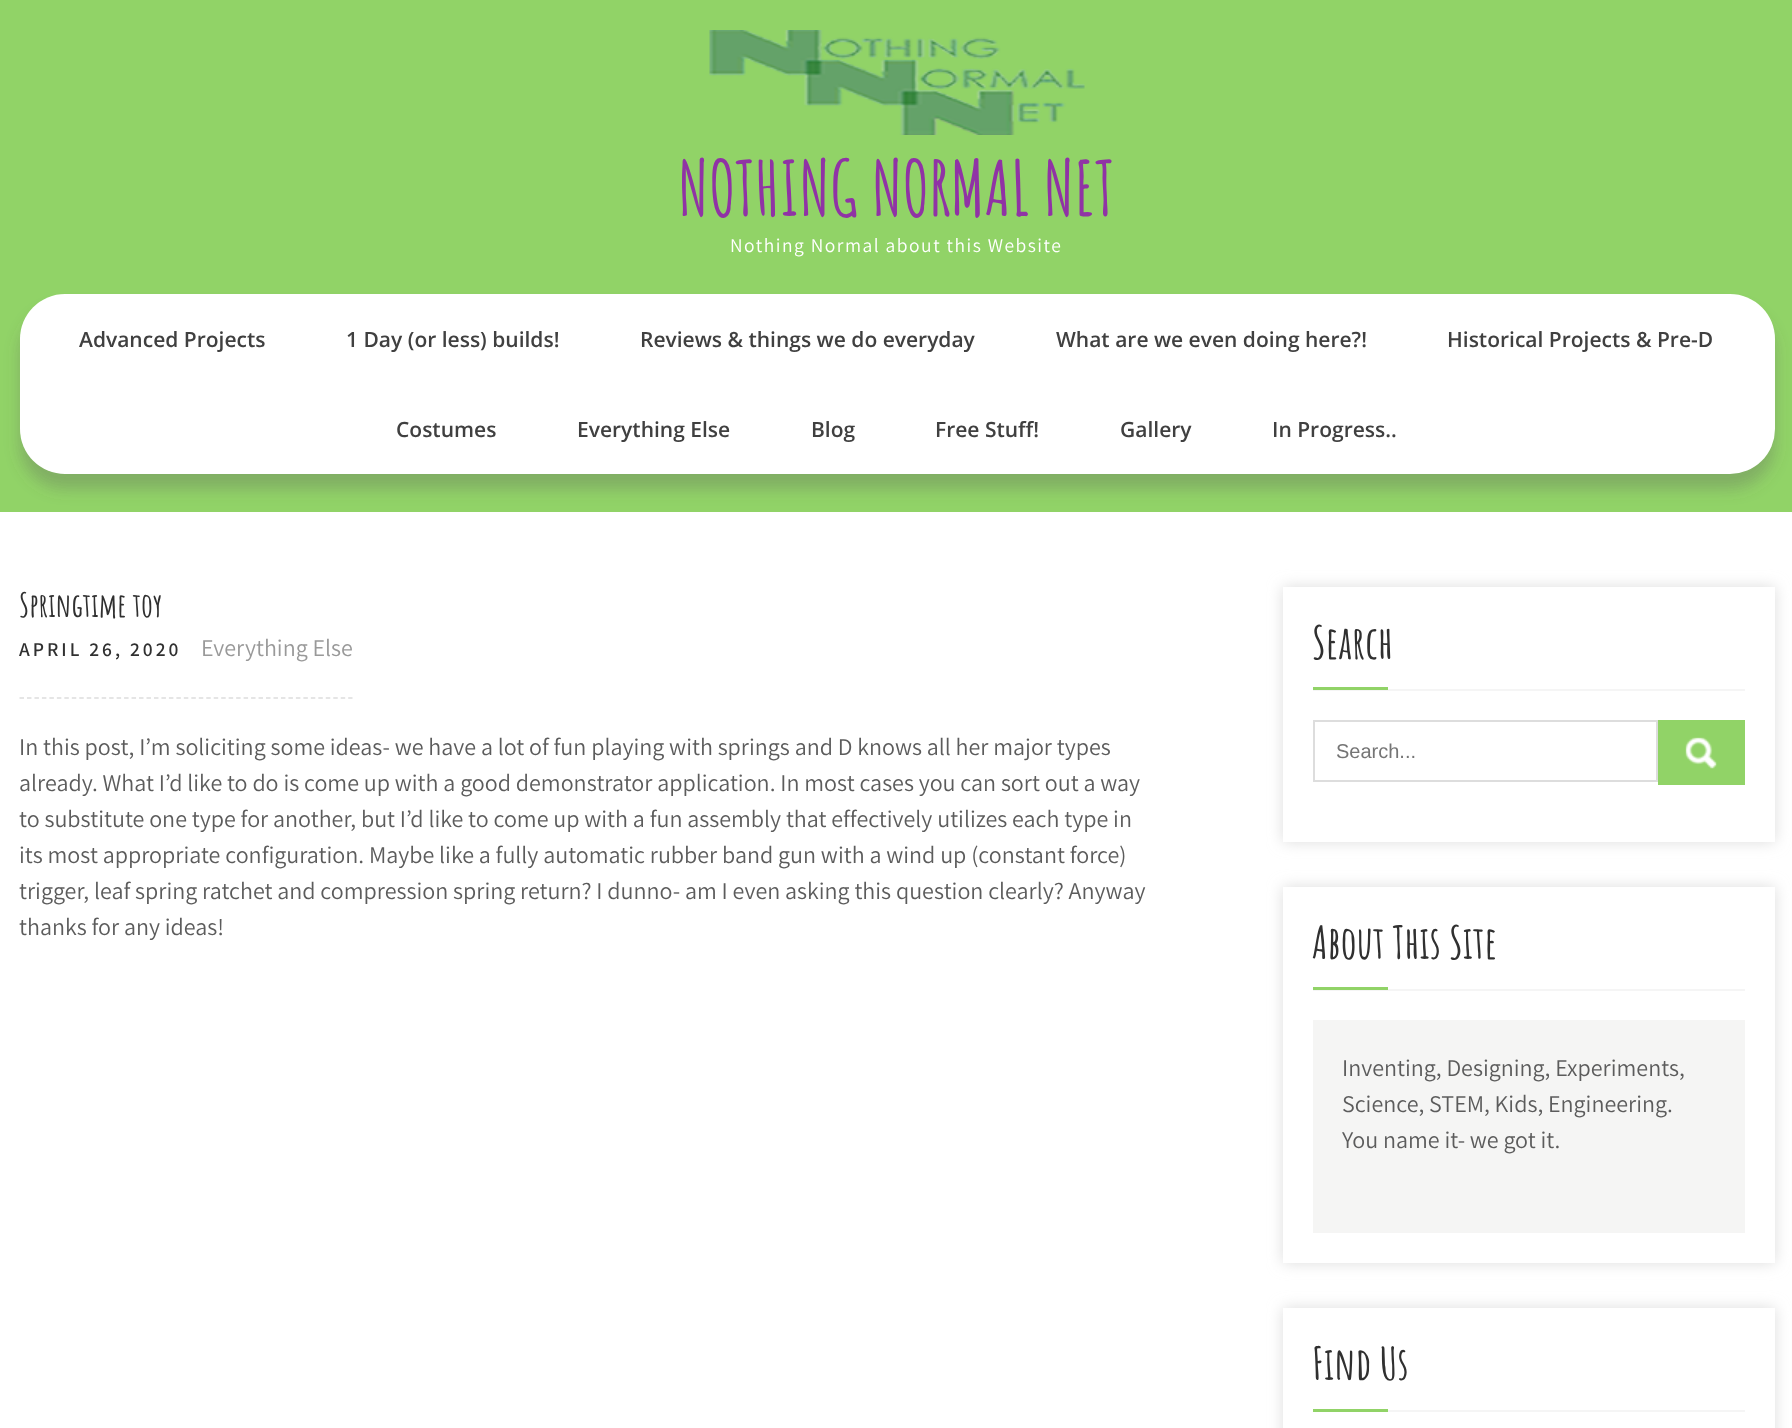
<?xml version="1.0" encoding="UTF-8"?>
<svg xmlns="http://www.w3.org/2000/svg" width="1792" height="1428">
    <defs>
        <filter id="blur1" x="-50%" y="-200%" width="200%" height="500%"><feGaussianBlur stdDeviation="7.5"/></filter>
    </defs>
    <rect width="100%" height="100%" fill="#FFFFFF"/>
    <rect x="0" y="0" width="1792" height="512" fill="#91D367"/>
    <image x="709" y="30" width="376" height="105" href="img_01.png"/>
    <text x="678" y="216" font-family="Amatic SC" font-size="75" font-weight="700" fill="#9033A5">NOTHING NORMAL NET</text>
    <text x="730" y="252" font-family="Assistant" font-size="19.5" letter-spacing="1.5" fill="#FFFFFF">Nothing Normal about this Website</text>
    <rect x="20" y="309" width="1755" height="180" rx="45" fill="#585858" fill-opacity="0.3" filter="url(#blur1)"/>
    <rect x="20" y="294" width="1755" height="180" rx="45" fill="#FFFFFF"/>
    <text x="79" y="347" font-family="Open Sans" font-size="21" font-weight="600" fill="#404040">Advanced Projects</text>
    <text x="346" y="347" font-family="Open Sans" font-size="21" font-weight="600" fill="#404040">1 Day (or less) builds!</text>
    <text x="640" y="347" font-family="Open Sans" font-size="21" font-weight="600" fill="#404040">Reviews &amp; things we do everyday</text>
    <text x="1056" y="347" font-family="Open Sans" font-size="21" font-weight="600" fill="#404040">What are we even doing here?!</text>
    <text x="1447" y="347" font-family="Open Sans" font-size="21" font-weight="600" fill="#404040">Historical Projects &amp; Pre-D</text>
    <text x="396" y="437" font-family="Open Sans" font-size="21" font-weight="600" fill="#404040">Costumes</text>
    <text x="577" y="437" font-family="Open Sans" font-size="21" font-weight="600" fill="#404040">Everything Else</text>
    <text x="811" y="437" font-family="Open Sans" font-size="21" font-weight="600" fill="#404040">Blog</text>
    <text x="935" y="437" font-family="Open Sans" font-size="21" font-weight="600" fill="#404040">Free Stuff!</text>
    <text x="1120" y="437" font-family="Open Sans" font-size="21" font-weight="600" fill="#404040">Gallery</text>
    <text x="1272" y="437" font-family="Open Sans" font-size="21" font-weight="600" fill="#404040">In Progress..</text>
    <text x="19" y="617" font-family="Amatic SC" font-size="33" font-weight="700" fill="#303030">Springtime toy</text>
    <path d="M 19.5 698 H 352.5" fill="none" stroke="#DDDDDD" stroke-width="1.5" stroke-dasharray="4.5 2.97"/>
    <text x="19" y="656" font-family="Assistant" font-size="19.5" font-weight="600" letter-spacing="3" fill="#303030">APRIL 26, 2020</text>
    <text x="201" y="656" font-family="Assistant" font-size="24" fill="#999999">Everything Else</text>
    <text font-family="Assistant" font-size="24" fill="#5C5C5C">
        <tspan x="19" y="755">In this post, I’m soliciting some ideas- we have a lot of fun playing with springs and D knows all her major types</tspan>
        <tspan x="19" y="791">already. What I’d like to do is come up with a good demonstrator application. In most cases you can sort out a way</tspan>
        <tspan x="19" y="827">to substitute one type for another, but I’d like to come up with a fun assembly that effectively utilizes each type in</tspan>
        <tspan x="19" y="863">its most appropriate configuration. Maybe like a fully automatic rubber band gun with a wind up (constant force)</tspan>
        <tspan x="19" y="899">trigger, leaf spring ratchet and compression spring return? I dunno- am I even asking this question clearly? Anyway</tspan>
        <tspan x="19" y="935">thanks for any ideas!</tspan>
    </text>
    <rect x="1283" y="587" width="492" height="255" fill="#DDDDDD" filter="url(#blur1)"/>
    <rect x="1283" y="587" width="492" height="255" fill="#FFFFFF"/>
    <rect x="1313" y="689" width="432" height="2" fill="#F5F5F5"/>
    <text x="1312" y="659" font-family="Amatic SC" font-size="45" font-weight="700" fill="#303030">Search</text>
    <rect x="1313" y="687" width="75" height="3" fill="#91D367"/>
    <rect x="1314" y="721" width="343" height="60" fill="none" stroke="#DDDDDD" stroke-width="2"/>
    <text x="1336" y="758" font-family="Liberation Sans" font-size="20" fill="#757575">Search...</text>
    <rect x="1658" y="720" width="87" height="65" fill="#91D367"/>
    <image x="1685" y="737" width="32" height="32" href="img_02.png"/>
    <rect x="1283" y="887" width="492" height="376" fill="#DDDDDD" filter="url(#blur1)"/>
    <rect x="1283" y="887" width="492" height="376" fill="#FFFFFF"/>
    <rect x="1313" y="989" width="432" height="2" fill="#F5F5F5"/>
    <text x="1312" y="959" font-family="Amatic SC" font-size="45" font-weight="700" fill="#303030">About This Site</text>
    <rect x="1313" y="987" width="75" height="3" fill="#91D367"/>
    <rect x="1313" y="1020" width="432" height="213" fill="#F5F5F4"/>
    <text font-family="Assistant" font-size="24" fill="#5C5C5C">
        <tspan x="1342" y="1076">Inventing, Designing, Experiments,</tspan>
        <tspan x="1342" y="1112">Science, STEM, Kids, Engineering.</tspan>
        <tspan x="1342" y="1148">You name it- we got it.</tspan>
    </text>
    <rect x="1283" y="1308" width="492" height="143" fill="#DDDDDD" filter="url(#blur1)"/>
    <rect x="1283" y="1308" width="492" height="120" fill="#FFFFFF"/>
    <rect x="1388" y="1410" width="357" height="2" fill="#F5F5F5"/>
    <text x="1312" y="1380" font-family="Amatic SC" font-size="45" font-weight="700" fill="#303030">Find Us</text>
    <rect x="1313" y="1409" width="75" height="3" fill="#91D367"/>
</svg>
